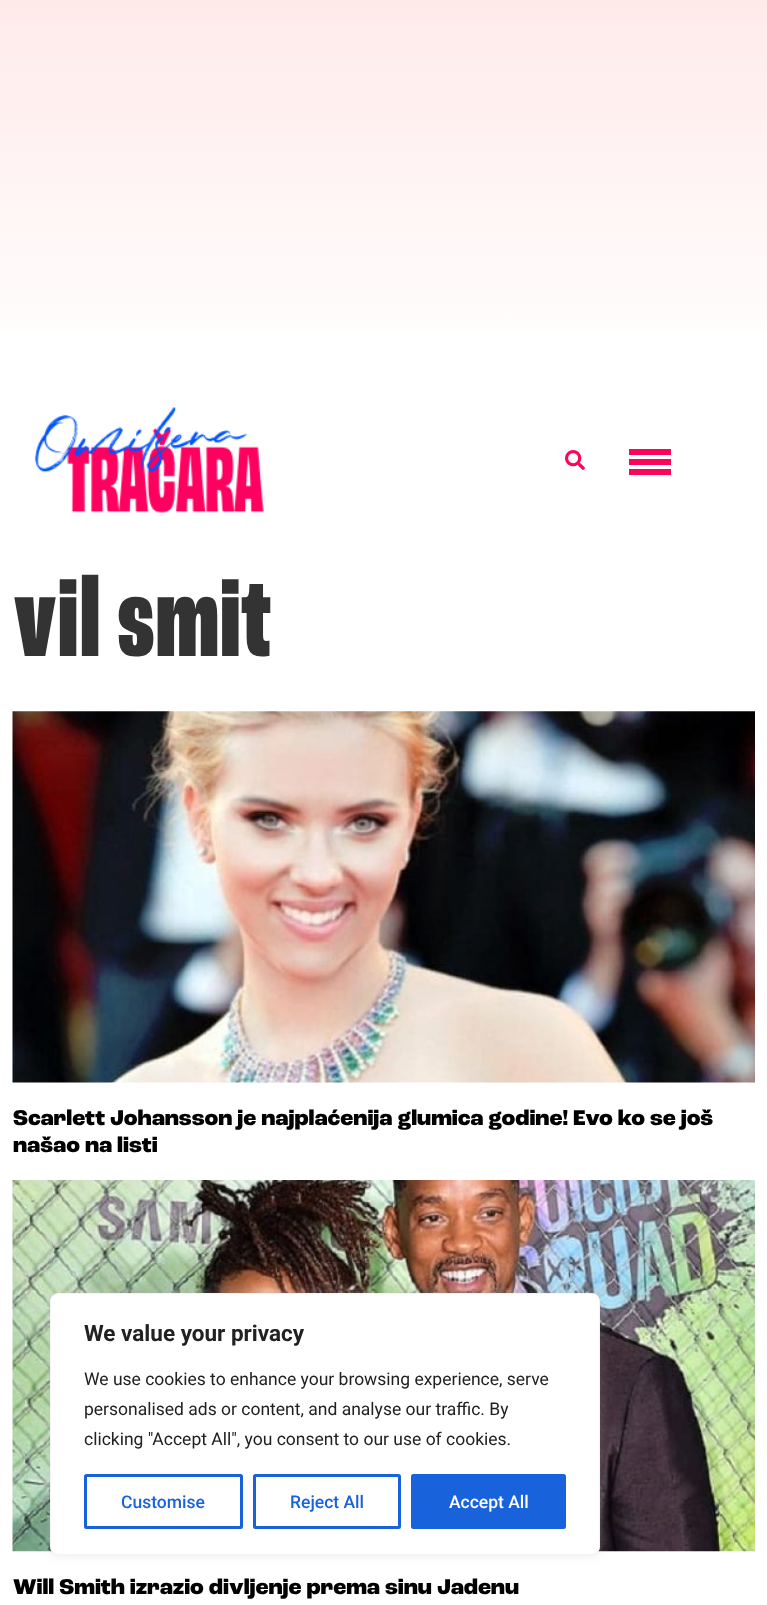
<?xml version="1.0" encoding="UTF-8"?>
<svg xmlns="http://www.w3.org/2000/svg" width="767" height="1605">
    <defs>
        <linearGradient id="g1" gradientUnits="userSpaceOnUse" x1="384" y1="0" x2="384" y2="375"><stop offset="0" stop-color="#FFEAEA"/><stop offset="1" stop-color="#FFFFFF"/></linearGradient>
        <filter id="blur1" x="-50%" y="-200%" width="200%" height="500%"><feGaussianBlur stdDeviation="6"/></filter>
    </defs>
    <rect width="100%" height="100%" fill="#FFFFFF"/>
    <rect x="0" y="0" width="767" height="330" fill="url(#g1)"/>
    <image x="34" y="407" width="230" height="106" href="img_01.png"/>
    <image x="565" y="450" width="20" height="20" href="img_02.png"/>
    <rect x="629" y="449" width="42" height="6" fill="#FB045C"/>
    <rect x="629" y="459" width="42" height="6" fill="#FB045C"/>
    <rect x="629" y="469" width="42" height="6" fill="#FB045C"/>
    <text x="13" y="656" font-family="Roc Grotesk" font-size="119" font-weight="800" fill="#333333">vil smit</text>
    <image x="12" y="711" width="743" height="372" href="img_03.png"/>
    <text font-family="'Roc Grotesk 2'" font-size="22.5" font-weight="800" fill="#000000">
        <tspan x="13" y="1125">Scarlett Johansson je najplaćenija glumica godine! Evo ko se još</tspan>
        <tspan x="13" y="1152">našao na listi</tspan>
    </text>
    <image x="12" y="1180" width="743" height="372" href="img_04.png"/>
    <text x="13" y="1594" font-family="'Roc Grotesk 2'" font-size="22.5" font-weight="800" fill="#000000">Will Smith izrazio divljenje prema sinu Jadenu</text>
    <rect x="50" y="1291" width="550" height="263" rx="8" fill="#ACABAB" fill-opacity="0.3" filter="url(#blur1)"/>
    <rect x="50.5" y="1293.5" width="549" height="261" rx="7.5" fill="#FFFFFF" stroke="#F4F4F4"/>
    <text x="84" y="1341" font-family="Roboto" font-size="22.5" font-weight="700" fill="#212121">We value your privacy</text>
    <text font-family="Roboto" font-size="17.5" fill="#212121">
        <tspan x="84" y="1385">We use cookies to enhance your browsing experience, serve</tspan>
        <tspan x="84" y="1415">personalised ads or content, and analyse our traffic. By</tspan>
        <tspan x="84" y="1445">clicking "Accept All", you consent to our use of cookies.</tspan>
    </text>
    <rect x="85.5" y="1475.5" width="156" height="52" rx="1" fill="none" stroke="#1863DC" stroke-width="3"/>
    <text x="121" y="1508" font-family="Roboto" font-size="17.5" font-weight="500" fill="#1863DC">Customise</text>
    <rect x="254.5" y="1475.5" width="145" height="52" rx="1" fill="none" stroke="#1863DC" stroke-width="3"/>
    <text x="290" y="1508" font-family="Roboto" font-size="17.5" font-weight="500" fill="#1863DC">Reject All</text>
    <rect x="412.5" y="1475.5" width="152" height="52" rx="1" fill="#1863DC" stroke="#1863DC" stroke-width="3"/>
    <text x="449" y="1508" font-family="Roboto" font-size="17.5" font-weight="500" fill="#FFFFFF">Accept All</text>
</svg>
